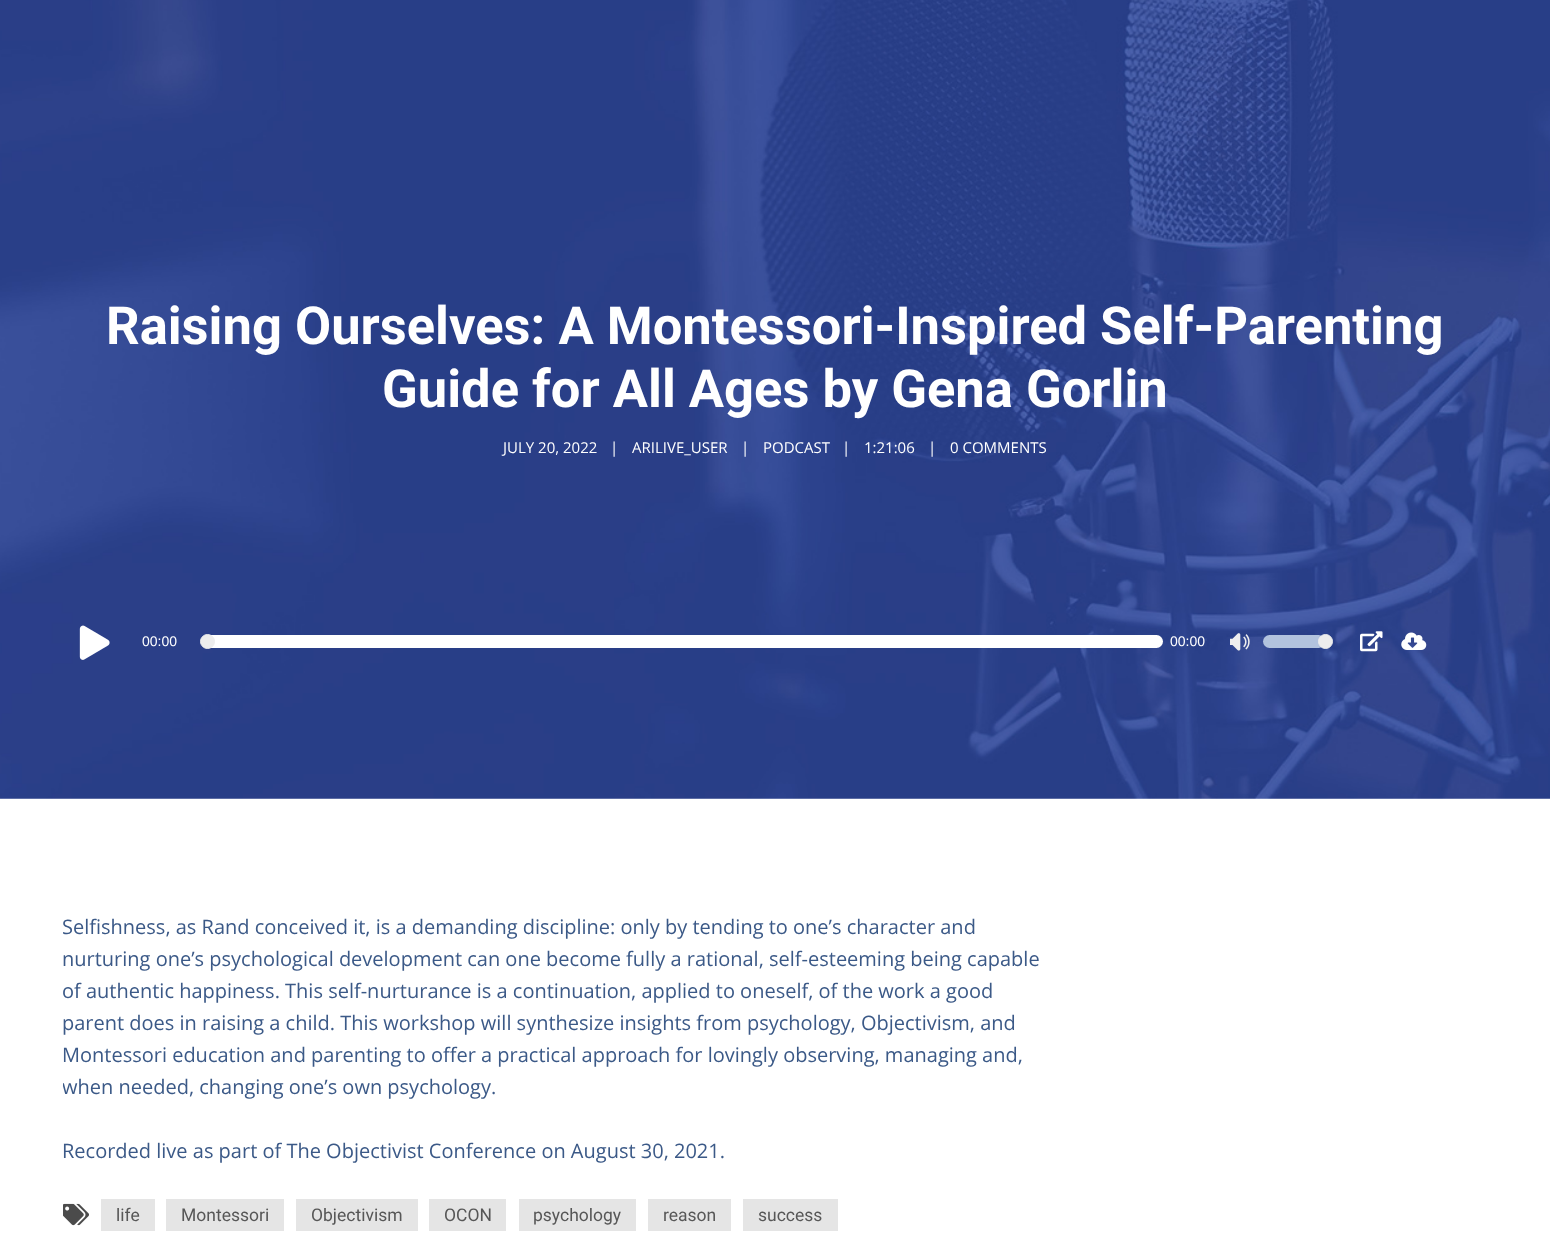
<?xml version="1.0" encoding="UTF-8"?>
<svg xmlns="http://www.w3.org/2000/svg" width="1550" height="1235">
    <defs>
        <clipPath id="clip1"><rect x="63" y="911" width="997" height="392"/></clipPath>
    </defs>
    <rect width="100%" height="100%" fill="#FFFFFF"/>
    <image x="0" y="0" width="1550" height="799" href="img_01.png"/>
    <text x="106" y="344" font-family="Roboto" font-size="52.5" font-weight="700" fill="#FFFFFF">Raising Ourselves: A Montessori-Inspired Self-Parenting</text>
    <text x="382" y="407" font-family="Roboto" font-size="52.5" font-weight="700" fill="#FFFFFF">Guide for All Ages by Gena Gorlin</text>
    <text x="503" y="453" font-family="Open Sans" font-size="15" fill="#FFFFFF">JULY 20, 2022</text>
    <text x="610" y="453" font-family="Open Sans" font-size="15" fill="#FFFFFF">|</text>
    <text x="632" y="453" font-family="Open Sans" font-size="15" fill="#FFFFFF">ARILIVE_USER</text>
    <text x="741" y="453" font-family="Open Sans" font-size="15" fill="#FFFFFF">|</text>
    <text x="763" y="453" font-family="Open Sans" font-size="15" fill="#FFFFFF">PODCAST</text>
    <text x="842" y="453" font-family="Open Sans" font-size="15" fill="#FFFFFF">|</text>
    <text x="864" y="453" font-family="Open Sans" font-size="15" fill="#FFFFFF">1:21:06</text>
    <text x="928" y="453" font-family="Open Sans" font-size="15" fill="#FFFFFF">|</text>
    <text x="950" y="453" font-family="Open Sans" font-size="15" fill="#FFFFFF">0 COMMENTS</text>
    <image x="79" y="625" width="31" height="35" href="img_02.png"/>
    <text x="142" y="646" font-family="Liberation Sans" font-size="14" fill="#FFFFFF">00:00</text>
    <rect x="205" y="635" width="958" height="13" rx="6.5" fill="#FFFFFF"/>
    <circle cx="207.5" cy="641.5" r="7" fill="#EDEDED" stroke="#EDEDED"/>
    <text x="1170" y="646" font-family="Liberation Sans" font-size="14" fill="#FFFFFF">00:00</text>
    <image x="1230" y="633" width="20" height="18" href="img_03.png"/>
    <rect x="1263" y="635" width="62" height="13" rx="6.5" fill="#B2C3DE"/>
    <circle cx="1325.5" cy="641.5" r="7" fill="#EDEDED" stroke="#EDEDED"/>
    <image x="1360" y="631" width="23" height="21" href="img_04.png"/>
    <image x="1401" y="632" width="26" height="18" href="img_05.png"/>
    <text font-family="Open Sans" font-size="20" fill="#3B5987">
        <tspan x="62" y="934">Selfishness, as Rand conceived it, is a demanding discipline: only by tending to one’s character and</tspan>
        <tspan x="62" y="966">nurturing one’s psychological development can one become fully a rational, self-esteeming being capable</tspan>
        <tspan x="62" y="998">of authentic happiness. This self-nurturance is a continuation, applied to oneself, of the work a good</tspan>
        <tspan x="62" y="1030">parent does in raising a child. This workshop will synthesize insights from psychology, Objectivism, and</tspan>
        <tspan x="62" y="1062">Montessori education and parenting to offer a practical approach for lovingly observing, managing and,</tspan>
    </text>
    <g clip-path="url(#clip1)">
        <text x="62" y="1094" font-family="Open Sans" font-size="20" fill="#3B5987">when needed, changing one’s own psychology.</text>
    </g>
    <text x="62" y="1158" font-family="Open Sans" font-size="20" fill="#3B5987">Recorded live as part of The Objectivist Conference on August 30, 2021.</text>
    <image x="63" y="1203" width="26" height="23" href="img_06.png"/>
    <rect x="101" y="1199" width="54" height="32" fill="#E5E5E5"/>
    <text x="116" y="1221" font-family="Roboto" font-size="17.5" fill="#575757">life</text>
    <rect x="166" y="1199" width="118" height="32" fill="#E5E5E5"/>
    <text x="181" y="1221" font-family="Roboto" font-size="17.5" fill="#575757">Montessori</text>
    <rect x="296" y="1199" width="122" height="32" fill="#E5E5E5"/>
    <text x="311" y="1221" font-family="Roboto" font-size="17.5" fill="#575757">Objectivism</text>
    <rect x="429" y="1199" width="77" height="32" fill="#E5E5E5"/>
    <text x="444" y="1221" font-family="Roboto" font-size="17.5" fill="#575757">OCON</text>
    <rect x="519" y="1199" width="117" height="32" fill="#E5E5E5"/>
    <text x="533" y="1221" font-family="Roboto" font-size="17.5" fill="#575757">psychology</text>
    <rect x="648" y="1199" width="83" height="32" fill="#E5E5E5"/>
    <text x="663" y="1221" font-family="Roboto" font-size="17.5" fill="#575757">reason</text>
    <rect x="743" y="1199" width="95" height="32" fill="#E5E5E5"/>
    <text x="758" y="1221" font-family="Roboto" font-size="17.5" fill="#575757">success</text>
</svg>
